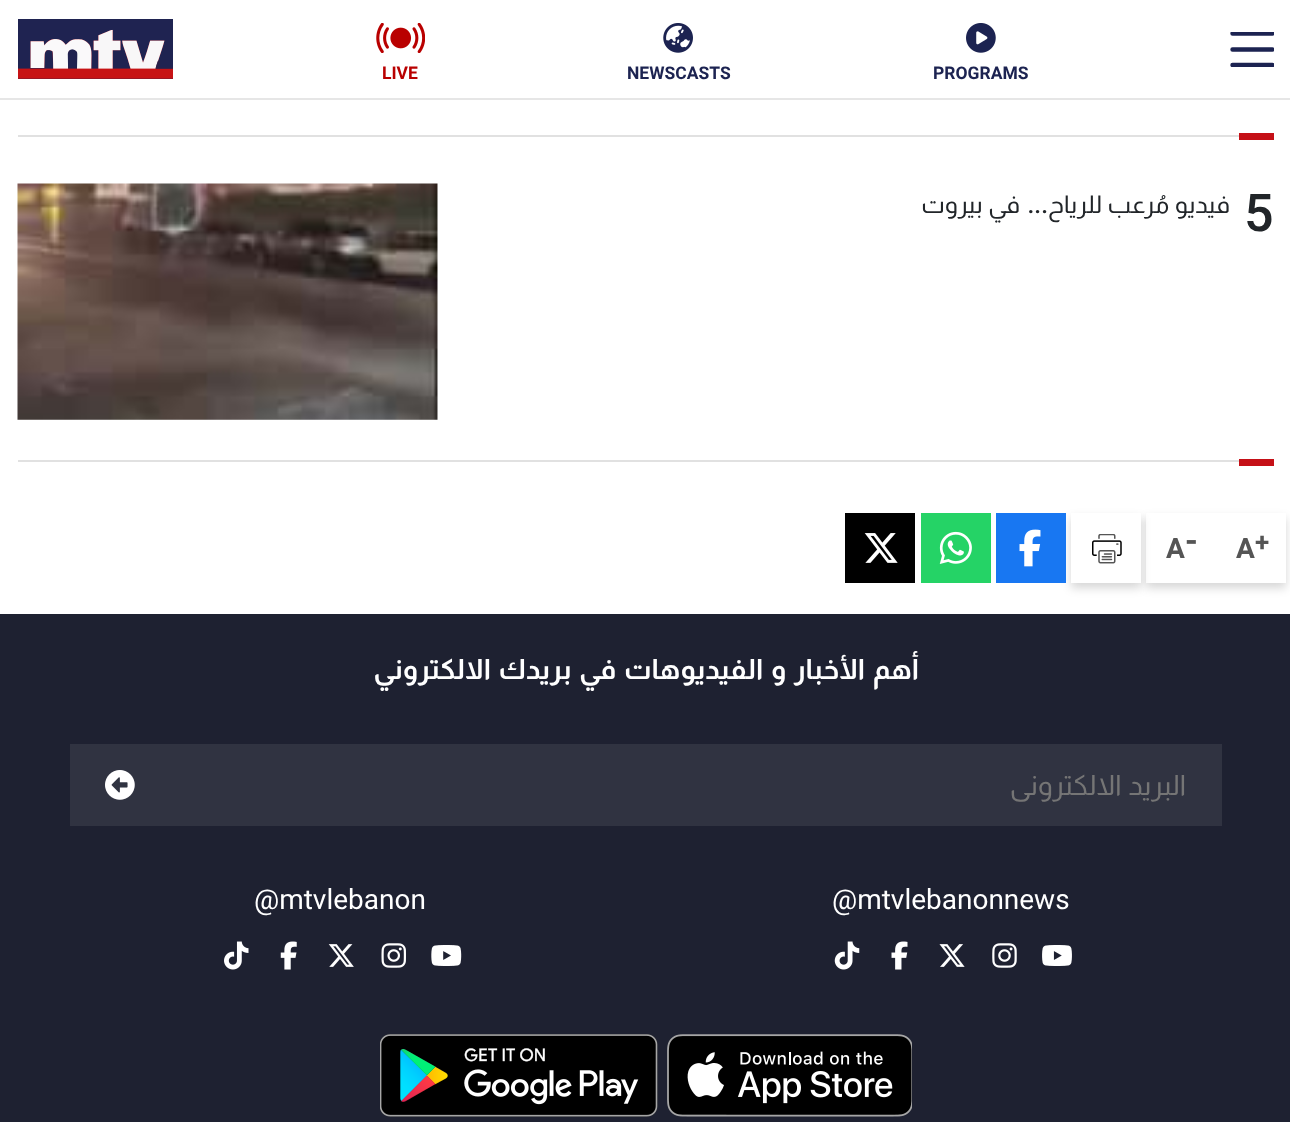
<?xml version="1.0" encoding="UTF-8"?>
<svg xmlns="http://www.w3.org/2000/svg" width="1290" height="1122">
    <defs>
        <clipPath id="clip1"><rect x="1230" y="32" width="44" height="35"/></clipPath>
        <filter id="blur1" x="-50%" y="-200%" width="200%" height="500%"><feGaussianBlur stdDeviation="5"/></filter>
        <clipPath id="clip2"><rect x="158" y="768" width="1029" height="34"/></clipPath>
    </defs>
    <rect width="100%" height="100%" fill="#FFFFFF"/>
    <rect x="0" y="98" width="1290" height="2" fill="#E6E6E6"/>
    <g clip-path="url(#clip1)">
        <path d="M 1232.5 33.5 H 1272.5 M 1232.5 49.5 H 1272.5 M 1232.5 65 H 1272.5" fill="none" stroke="#1C2351" stroke-width="4.4" stroke-linecap="round"/>
    </g>
    <image x="18" y="19" width="155" height="60" href="img_01.png"/>
    <image x="966" y="23" width="30" height="30" href="img_02.png"/>
    <text x="933" y="79" font-family="Roboto" font-size="17.5" font-weight="700" fill="#1C2351">PROGRAMS</text>
    <image x="663" y="23" width="30" height="30" href="img_03.png"/>
    <text x="627" y="79" font-family="Roboto" font-size="17.5" font-weight="700" fill="#1C2351">NEWSCASTS</text>
    <image x="376" y="23" width="49" height="30" href="img_04.png"/>
    <text x="382" y="79" font-family="Roboto" font-size="17.5" font-weight="700" fill="#B90000">LIVE</text>
    <rect x="18" y="135" width="1221" height="2" fill="#E1E1E1"/>
    <rect x="1239" y="133" width="35" height="7" fill="#C51017"/>
    <rect x="18" y="460" width="1221" height="2" fill="#E1E1E1"/>
    <text x="1244" y="231" font-family="Roboto" font-size="52" font-weight="500" fill="#212529">5</text>
    <text x="1230" y="213" word-spacing="1" font-family="Almarai" font-size="24.5" direction="rtl" fill="#212529">فيديو مُرعب للرياح</text>
    <text x="1048" y="213" font-family="Roboto" font-size="24.5" font-weight="500" direction="rtl" fill="#212529">...</text>
    <text x="1020" y="213" word-spacing="1" font-family="Almarai" font-size="24.5" direction="rtl" fill="#212529">في بيروت</text>
    <image x="17" y="183" width="421" height="237" href="img_05.png"/>
    <rect x="1239" y="459" width="35" height="7" fill="#C51017"/>
    <rect x="1146" y="518" width="140" height="70" fill="#000000" fill-opacity="0.16" filter="url(#blur1)"/>
    <rect x="1146" y="513" width="140" height="70" fill="#FFFFFF"/>
    <text x="1236" y="558" font-family="Roboto" font-size="28" font-weight="700" fill="#555555">A</text>
    <text x="1255" y="551" font-family="Roboto" font-size="26" font-weight="700" fill="#555555">+</text>
    <text x="1185" y="552" font-family="Roboto" font-size="33" font-weight="700" fill="#555555">-</text>
    <text x="1166" y="558" font-family="Roboto" font-size="28" font-weight="700" fill="#555555">A</text>
    <rect x="1071" y="518" width="70" height="70" fill="#000000" fill-opacity="0.16" filter="url(#blur1)"/>
    <rect x="1071" y="513" width="70" height="70" fill="#FFFFFF"/>
    <image x="1092" y="534" width="30" height="30" href="img_06.png"/>
    <rect x="996" y="513" width="70" height="70" fill="#1877F2"/>
    <image x="1019" y="529" width="22" height="38" href="img_07.png"/>
    <rect x="921" y="513" width="70" height="70" fill="#25D366"/>
    <image x="939" y="531" width="33" height="33" href="img_08.png"/>
    <rect x="845" y="513" width="70" height="70" fill="#000000"/>
    <image x="864" y="533" width="34" height="30" href="img_09.png"/>
    <rect x="0" y="614" width="1290" height="508" fill="#1E2131"/>
    <text x="919" y="679" word-spacing="2.5" font-family="Almarai" font-size="28" font-weight="700" direction="rtl" fill="#FFFFFF">أهم الأخبار و الفيديوهات في بريدك الالكتروني</text>
    <rect x="70" y="744" width="1152" height="82" fill="#303341"/>
    <g clip-path="url(#clip2)">
        <text x="1186" y="795" word-spacing="2" font-family="Almarai" font-size="28" direction="rtl" fill="#757575">البريد الالكتروني</text>
    </g>
    <image x="105" y="770" width="30" height="30" href="img_10.png"/>
    <text x="832" y="909" font-family="Roboto" font-size="28" fill="#FFFFFF">@mtvlebanonnews</text>
    <image x="1042" y="945" width="30" height="21" href="img_11.png"/>
    <image x="992" y="943" width="25" height="25" href="img_12.png"/>
    <image x="939" y="944" width="26" height="23" href="img_13.png"/>
    <image x="891" y="941" width="17" height="29" href="img_14.png"/>
    <image x="834" y="941" width="26" height="29" href="img_15.png"/>
    <text x="254" y="909" font-family="Roboto" font-size="28" fill="#FFFFFF">@mtvlebanon</text>
    <image x="431" y="945" width="31" height="21" href="img_16.png"/>
    <image x="381" y="943" width="25" height="25" href="img_17.png"/>
    <image x="328" y="944" width="26" height="23" href="img_18.png"/>
    <image x="280" y="941" width="17" height="29" href="img_19.png"/>
    <image x="224" y="941" width="25" height="29" href="img_20.png"/>
    <image x="667" y="1034" width="245" height="83" href="img_21.png"/>
    <image x="380" y="1034" width="278" height="83" href="img_22.png"/>
</svg>
